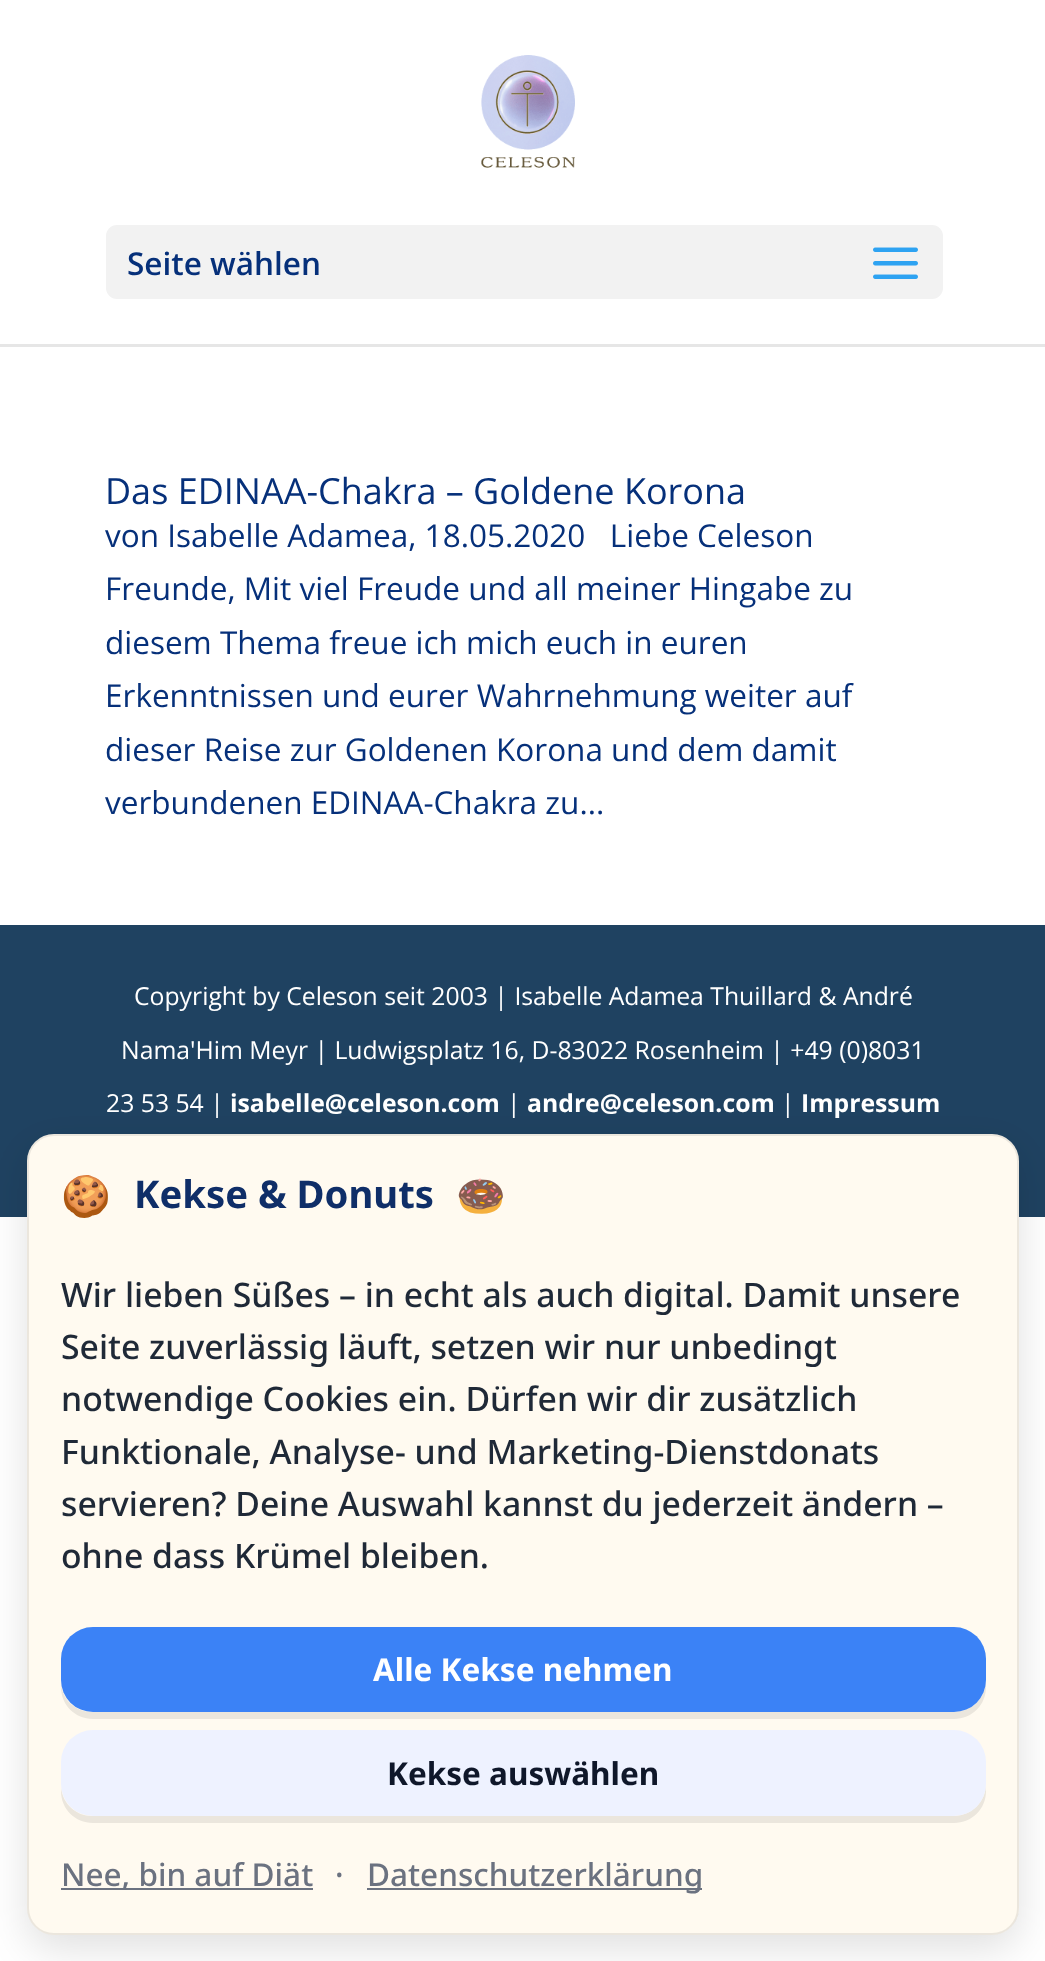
<?xml version="1.0" encoding="UTF-8"?>
<svg xmlns="http://www.w3.org/2000/svg" width="1045" height="1961">
    <defs>
        <filter id="blur1" x="-50%" y="-200%" width="200%" height="500%"><feGaussianBlur stdDeviation="20"/></filter>
    </defs>
    <rect width="100%" height="100%" fill="#FFFFFF"/>
    <rect x="0" y="344" width="1045" height="3" fill="#E6E6E6"/>
    <image x="481" y="55" width="94" height="113" href="img_01.png"/>
    <rect x="106" y="225" width="837" height="74" rx="11" fill="#F2F2F2"/>
    <text x="127" y="275" font-family="Open Sans" font-size="31.5" font-weight="600" fill="#06307A">Seite wählen</text>
    <image x="873" y="247" width="45" height="32" href="img_02.png"/>
    <text x="105" y="504" font-family="Open Sans" font-size="36" fill="#06307A">Das EDINAA-Chakra – Goldene Korona</text>
    <text font-family="Open Sans" font-size="31.5" fill="#06307A" xml:space="preserve"><tspan x="105" y="547">von Isabelle Adamea, 18.05.2020   Liebe Celeson</tspan><tspan x="105" y="600">Freunde, Mit viel Freude und all meiner Hingabe zu</tspan><tspan x="105" y="654">diesem Thema freue ich mich euch in euren</tspan><tspan x="105" y="707">Erkenntnissen und eurer Wahrnehmung weiter auf</tspan><tspan x="105" y="761">dieser Reise zur Goldenen Korona und dem damit</tspan><tspan x="105" y="814">verbundenen EDINAA-Chakra zu...</tspan></text>
    <rect x="0" y="925" width="1045" height="292" fill="#1F4261"/>
    <text x="134" y="1005" font-family="Open Sans" font-size="24.75" fill="#FFFFFF">Copyright by Celeson seit 2003 | Isabelle Adamea Thuillard &amp; André</text>
    <text x="121" y="1059" font-family="Open Sans" font-size="24.75" fill="#FFFFFF">Nama'Him Meyr | Ludwigsplatz 16, D-83022 Rosenheim | +49 (0)8031</text>
    <text x="106" y="1112" font-family="Open Sans" font-size="24.75" fill="#FFFFFF">23 53 54 |</text>
    <text x="230" y="1112" font-family="Open Sans" font-size="24.75" font-weight="700" fill="#FFFFFF">isabelle@celeson.com</text>
    <text x="507" y="1112" font-family="Open Sans" font-size="24.75" fill="#FFFFFF">|</text>
    <text x="527" y="1112" font-family="Open Sans" font-size="24.75" font-weight="700" fill="#FFFFFF">andre@celeson.com</text>
    <text x="781" y="1112" font-family="Open Sans" font-size="24.75" fill="#FFFFFF">|</text>
    <text x="801" y="1112" font-family="Open Sans" font-size="24.75" font-weight="700" fill="#FFFFFF">Impressum</text>
    <rect x="27" y="1148" width="992" height="801" rx="27" fill="#000000" fill-opacity="0.12" filter="url(#blur1)"/>
    <rect x="27" y="1134" width="992" height="801" rx="27" fill="#FFFAF0"/>
    <rect x="28" y="1135" width="990" height="799" rx="26" fill="none" stroke="#000000" stroke-opacity="0.08" stroke-width="2"/>
    <text x="61" y="1210" font-family="Noto Color Emoji" font-size="40" font-weight="700" fill="#0F2E68">🍪</text>
    <text x="134" y="1208" font-family="Noto Sans" font-size="38.25" font-weight="700" fill="#0F2E68">Kekse &amp; Donuts</text>
    <text x="456" y="1210" font-family="Noto Color Emoji" font-size="40" font-weight="700" fill="#0F2E68">🍩</text>
    <text font-family="Noto Sans" font-size="33.75" font-weight="500" fill="#1F2937">
        <tspan x="61" y="1307">Wir lieben Süßes – in echt als auch digital. Damit unsere</tspan>
        <tspan x="61" y="1359">Seite zuverlässig läuft, setzen wir nur unbedingt</tspan>
        <tspan x="61" y="1411">notwendige Cookies ein. Dürfen wir dir zusätzlich</tspan>
        <tspan x="61" y="1464">Funktionale, Analyse- und Marketing-Dienstdonats</tspan>
        <tspan x="61" y="1516">servieren? Deine Auswahl kannst du jederzeit ändern –</tspan>
        <tspan x="61" y="1568">ohne dass Krümel bleiben.</tspan>
    </text>
    <path d="M 61 1685 V 1687 C 61 1705 75 1719 93 1719 H 954 C 972 1719 986 1705 986 1687 V 1666 V 1660 V 1681 C 986 1698 971 1712 954 1712 H 92 C 76 1712 63 1700 61 1685 Z" fill="#EBE6DD"/>
    <rect x="61" y="1627" width="925" height="85" rx="32" fill="#3B82F6"/>
    <text x="373" y="1681" font-family="Noto Sans" font-size="31.5" font-weight="700" fill="#FFFFFF">Alle Kekse nehmen</text>
    <path d="M 61 1788 V 1791 C 61 1809 75 1823 93 1823 H 954 C 972 1823 986 1809 986 1791 V 1769 V 1763 V 1784 C 986 1802 971 1816 954 1816 H 92 C 76 1816 63 1804 61 1788 Z" fill="#EBE6DD"/>
    <rect x="61" y="1730" width="925" height="86" rx="32" fill="#EEF2FF"/>
    <text x="387" y="1785" font-family="Noto Sans" font-size="31.5" font-weight="700" fill="#0F172A">Kekse auswählen</text>
    <rect x="61" y="1888" width="252" height="2" fill="#6B7280"/>
    <text x="61" y="1886" font-family="Noto Sans" font-size="31.5" font-weight="500" fill="#6B7280">Nee, bin auf Diät</text>
    <text x="335" y="1886" font-family="Noto Sans" font-size="31.5" font-weight="500" fill="#6B7280">·</text>
    <rect x="367" y="1888" width="335" height="2" fill="#6B7280"/>
    <text x="367" y="1886" font-family="Noto Sans" font-size="31.5" font-weight="500" fill="#6B7280">Datenschutzerklärung</text>
</svg>
